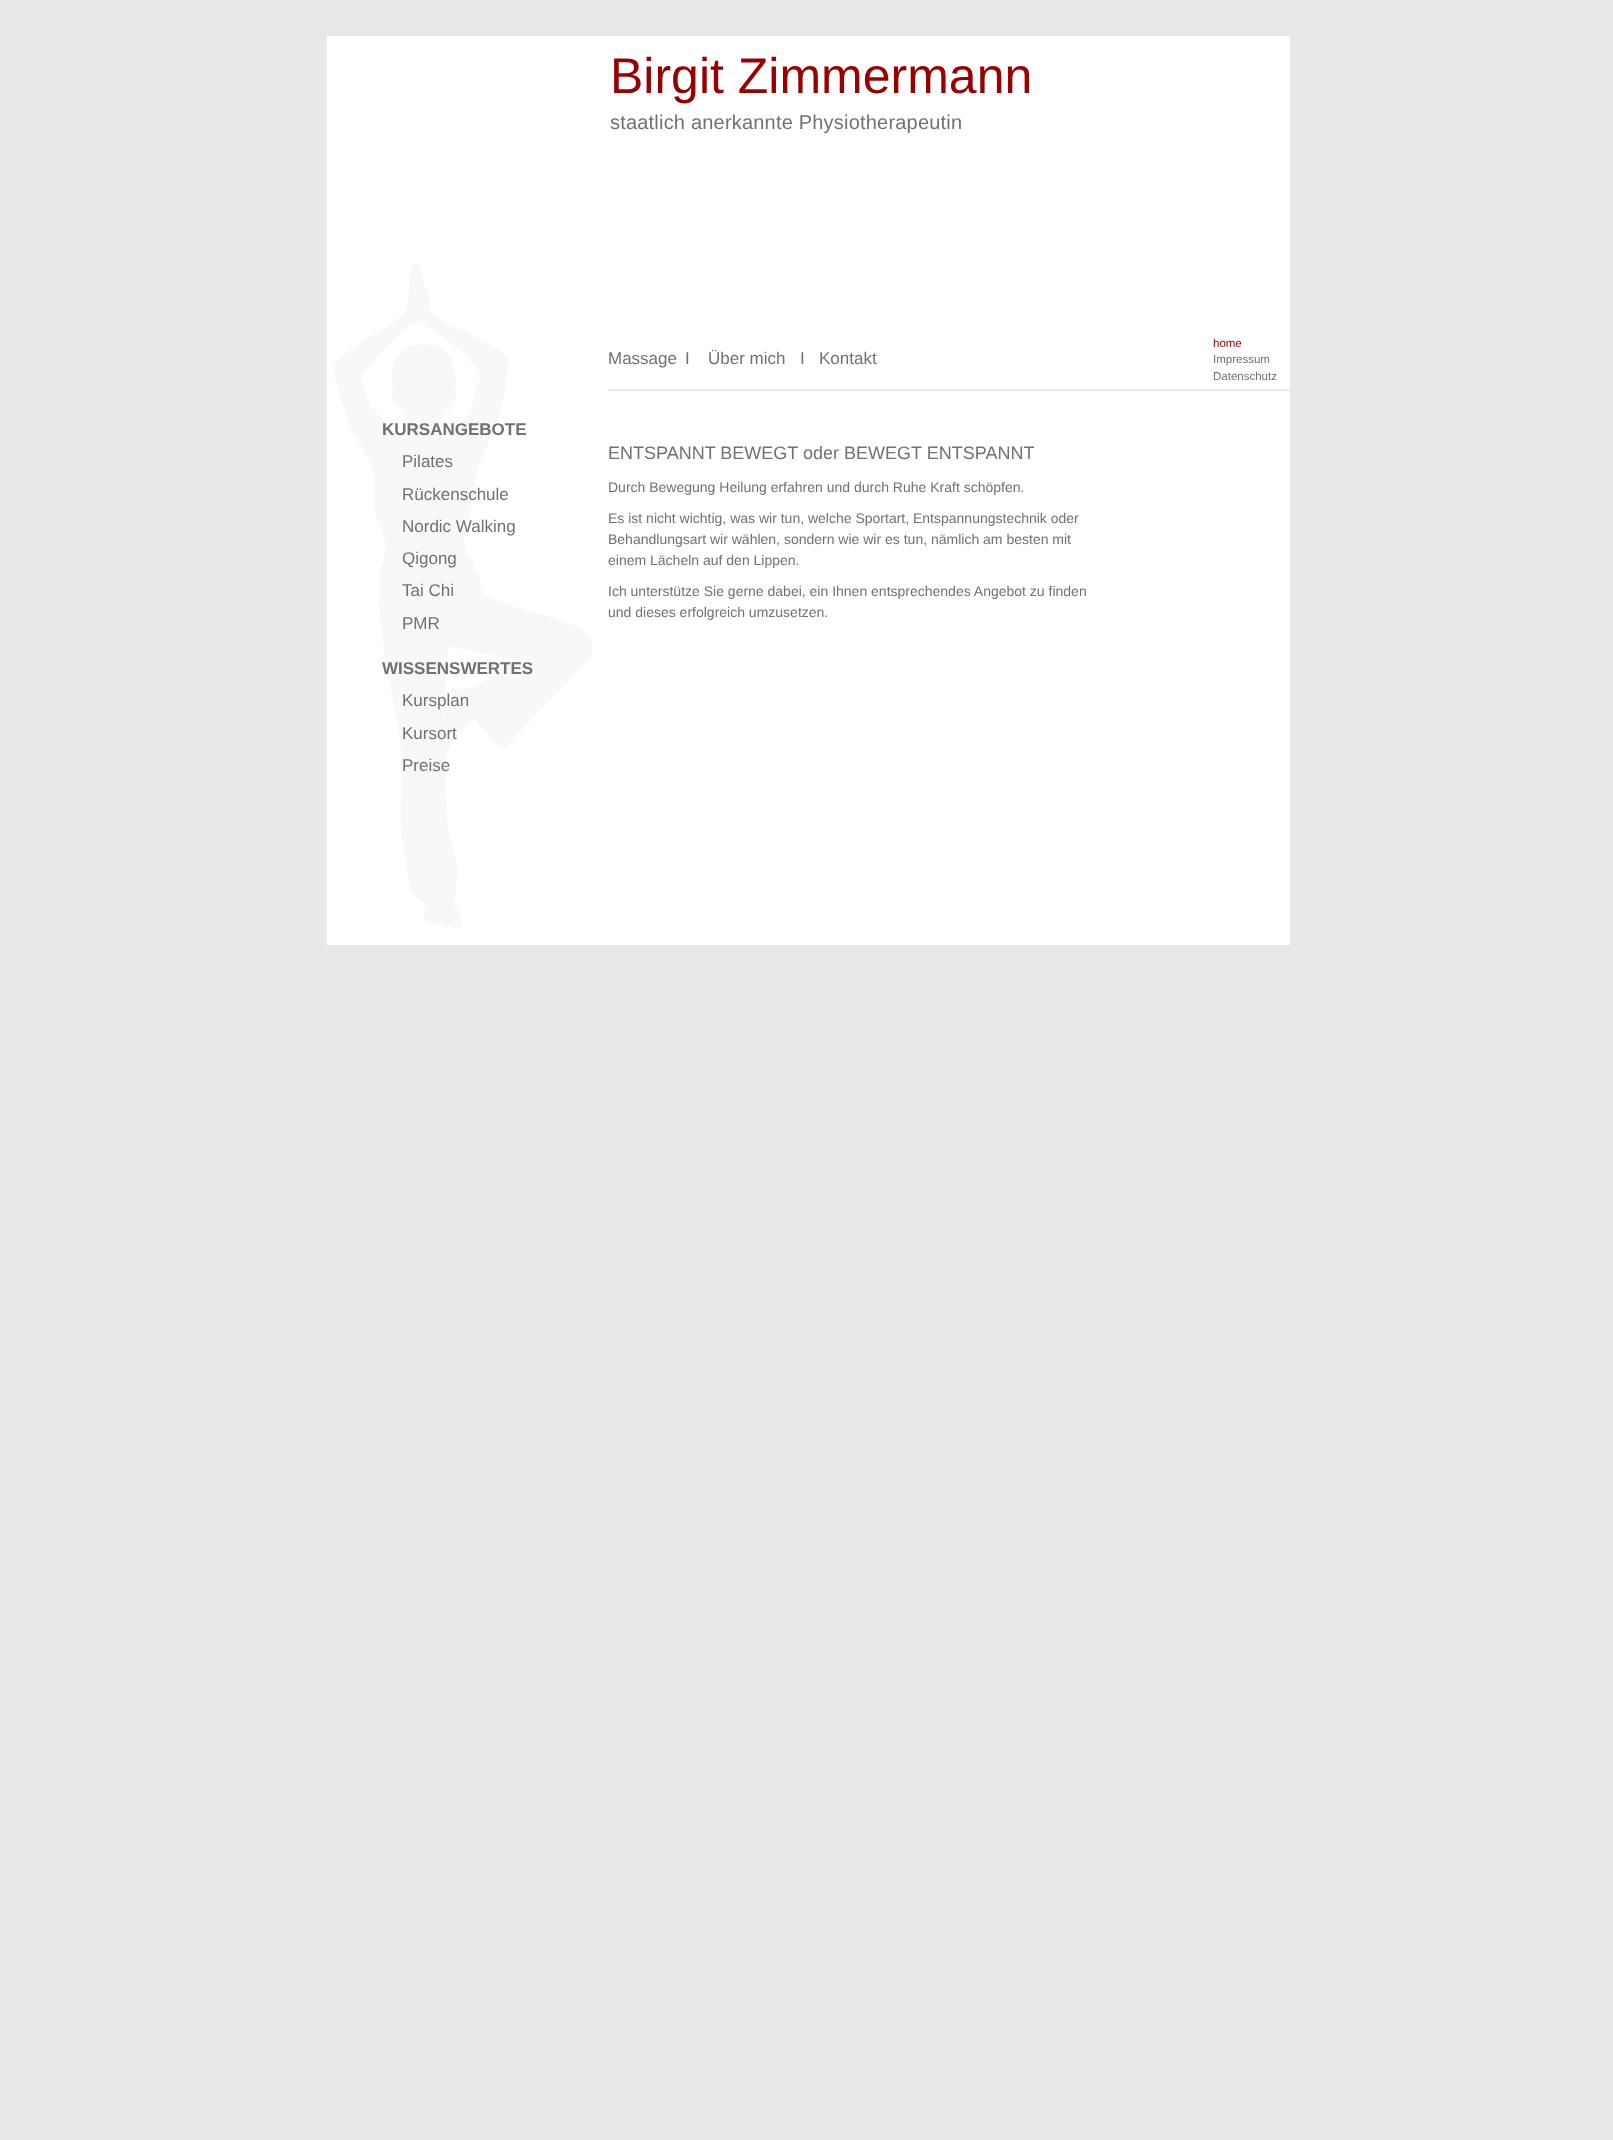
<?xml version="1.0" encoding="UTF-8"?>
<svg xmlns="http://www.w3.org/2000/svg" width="1613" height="2140">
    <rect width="100%" height="100%" fill="#E8E8E8"/>
    <image x="327" y="36" width="963" height="909" href="img_01.png"/>
    <text x="610" y="93" font-family="Liberation Sans" font-size="50" fill="#990000">Birgit Zimmermann</text>
    <text x="610" y="129" font-family="Liberation Sans" font-size="20" letter-spacing="0.2" fill="#717171">staatlich anerkannte Physiotherapeutin</text>
    <text x="1213" y="347" font-family="Liberation Sans" font-size="11.5" fill="#990000">home</text>
    <text x="608" y="364" font-family="Liberation Sans" font-size="17" fill="#717171">Massage</text>
    <text x="685" y="364" font-family="Liberation Sans" font-size="17" letter-spacing="14" fill="#717171">I</text>
    <text x="708" y="364" font-family="Liberation Sans" font-size="17" fill="#717171">Über mich</text>
    <text x="800" y="364" font-family="Liberation Sans" font-size="17" letter-spacing="14" fill="#717171">I</text>
    <text x="819" y="364" font-family="Liberation Sans" font-size="17" fill="#717171">Kontakt</text>
    <text font-family="Liberation Sans" font-size="11.5" fill="#717171">
        <tspan x="1213" y="363">Impressum</tspan>
        <tspan x="1213" y="380">Datenschutz</tspan>
    </text>
    <rect x="608" y="389" width="682" height="2" fill="#E8E8E8"/>
    <text x="382" y="435" font-family="Liberation Sans" font-size="17" font-weight="700" fill="#717171">KURSANGEBOTE</text>
    <text font-family="Liberation Sans" font-size="17" fill="#717171">
        <tspan x="402" y="467">Pilates</tspan>
        <tspan x="402" y="500">Rückenschule</tspan>
        <tspan x="402" y="532">Nordic Walking</tspan>
        <tspan x="402" y="564">Qigong</tspan>
        <tspan x="402" y="596">Tai Chi</tspan>
        <tspan x="402" y="629">PMR</tspan>
    </text>
    <text x="382" y="674" font-family="Liberation Sans" font-size="17" font-weight="700" fill="#717171">WISSENSWERTES</text>
    <text font-family="Liberation Sans" font-size="17" fill="#717171">
        <tspan x="402" y="706">Kursplan</tspan>
        <tspan x="402" y="739">Kursort</tspan>
        <tspan x="402" y="771">Preise</tspan>
    </text>
    <text x="608" y="459" font-family="Liberation Sans" font-size="18" fill="#717171">ENTSPANNT BEWEGT oder BEWEGT ENTSPANNT</text>
    <text x="608" y="492" font-family="Liberation Sans" font-size="14" fill="#717171">Durch Bewegung Heilung erfahren und durch Ruhe Kraft schöpfen.</text>
    <text font-family="Liberation Sans" font-size="14" fill="#717171">
        <tspan x="608" y="523">Es ist nicht wichtig, was wir tun, welche Sportart, Entspannungstechnik oder</tspan>
        <tspan x="608" y="544">Behandlungsart wir wählen, sondern wie wir es tun, nämlich am besten mit</tspan>
        <tspan x="608" y="565">einem Lächeln auf den Lippen.</tspan>
    </text>
    <text font-family="Liberation Sans" font-size="14" fill="#717171">
        <tspan x="608" y="596">Ich unterstütze Sie gerne dabei, ein Ihnen entsprechendes Angebot zu finden</tspan>
        <tspan x="608" y="617">und dieses erfolgreich umzusetzen.</tspan>
    </text>
</svg>
